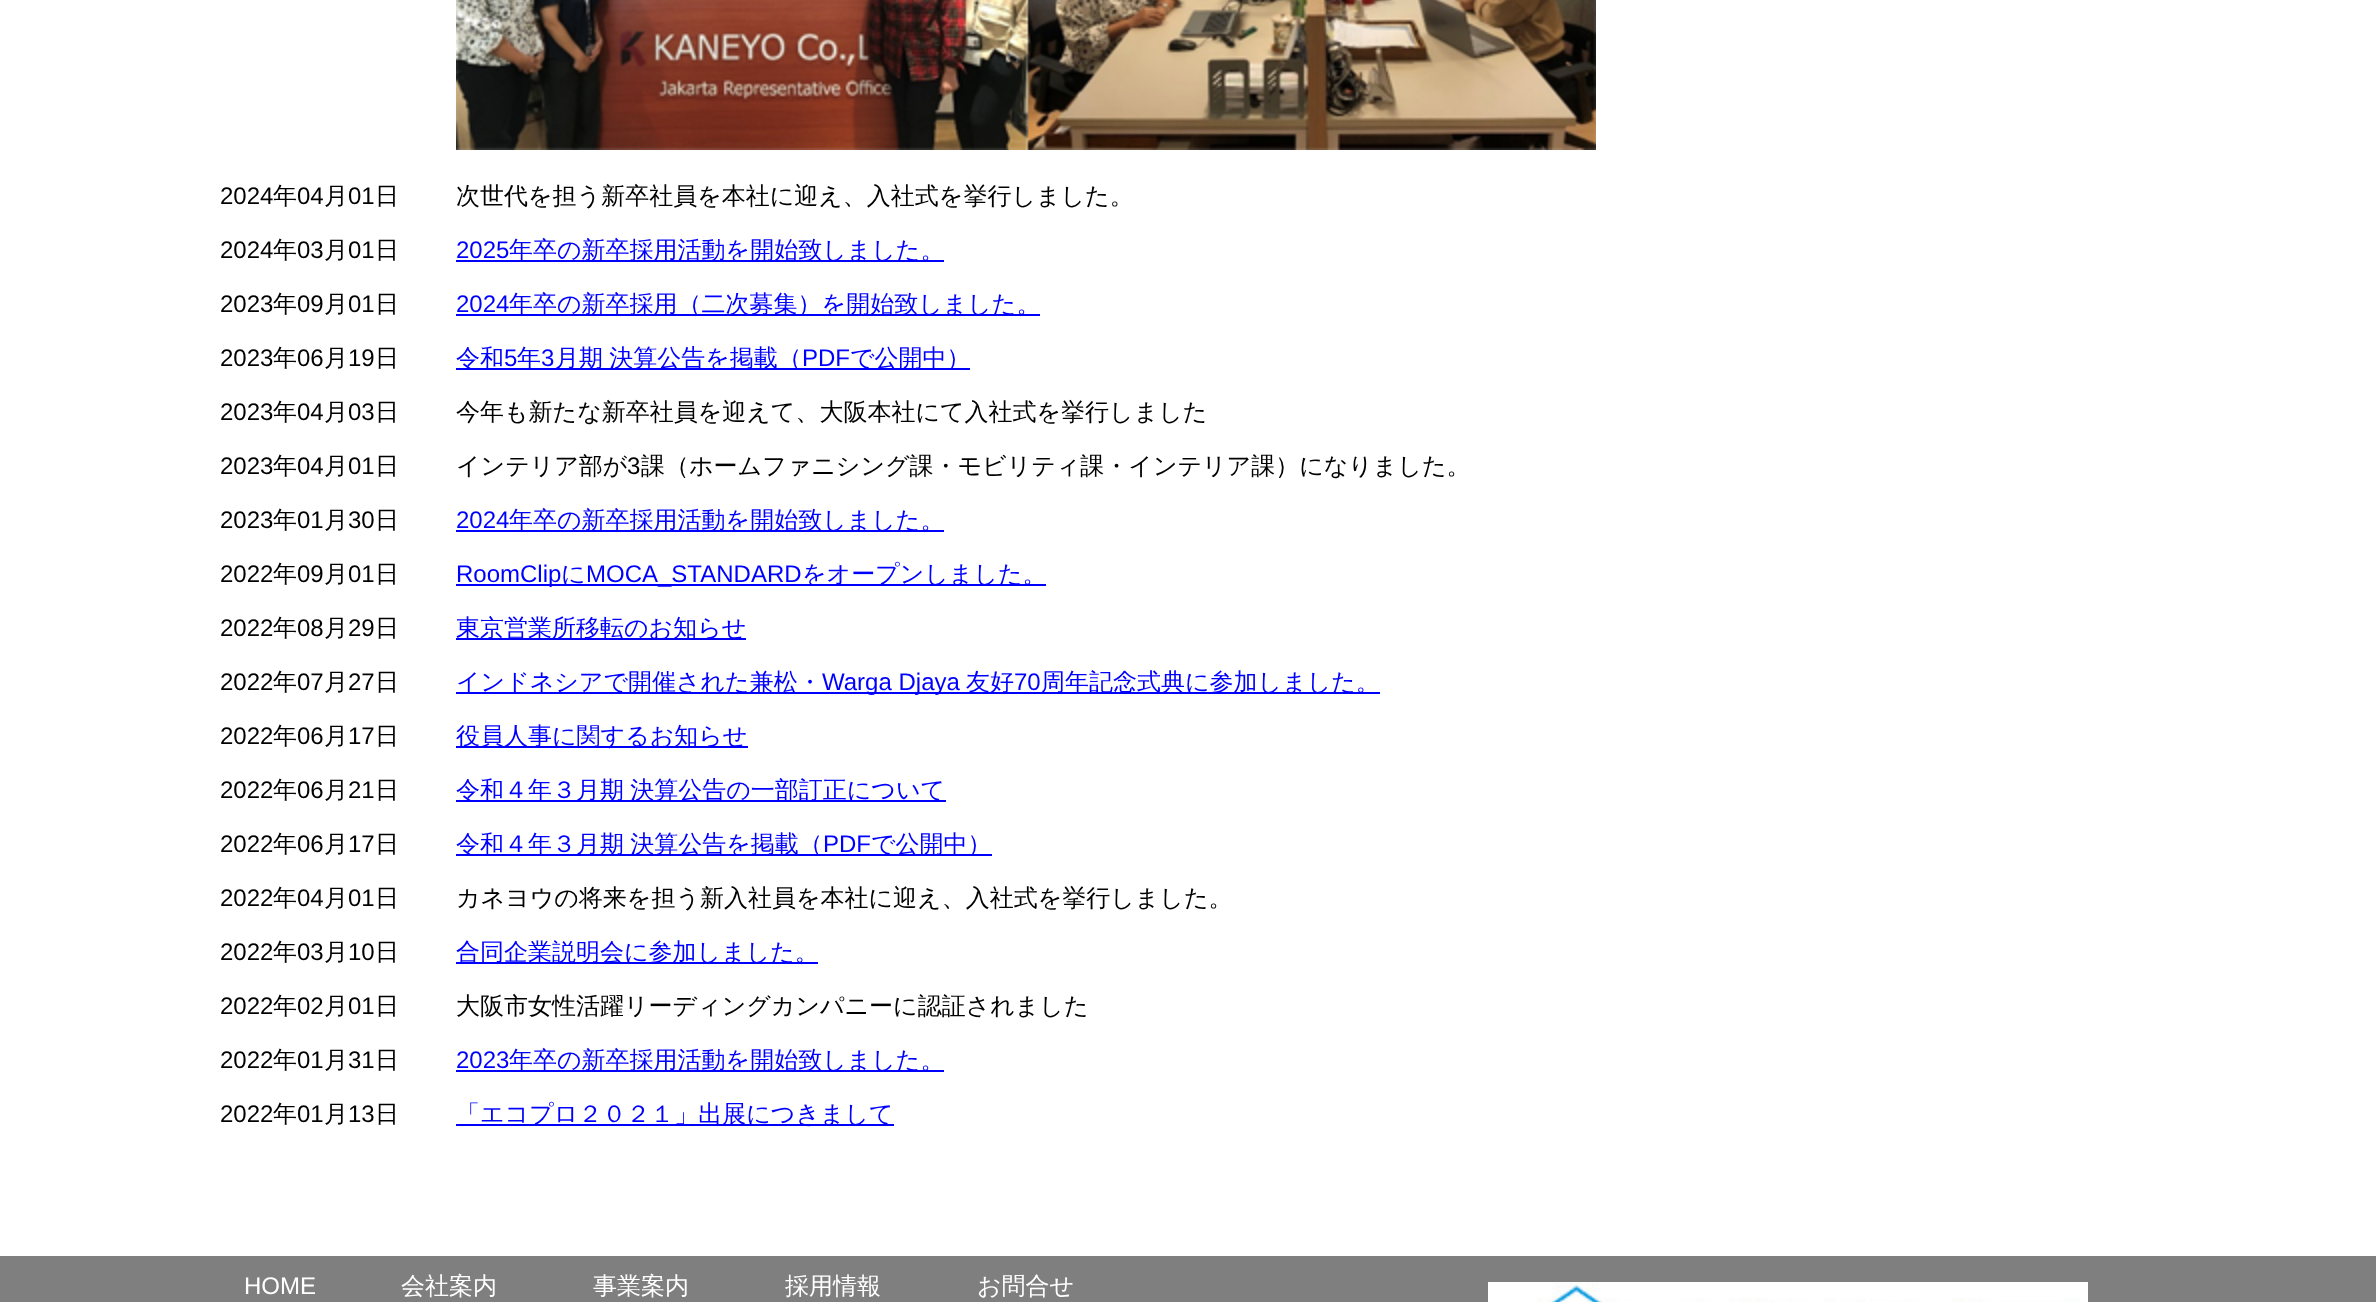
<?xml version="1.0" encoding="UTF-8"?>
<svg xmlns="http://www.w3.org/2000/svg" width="2376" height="1302">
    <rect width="100%" height="100%" fill="#FFFFFF"/>
    <image x="456" y="0" width="1140" height="150" href="img_01.png"/>
    <text x="220" y="204" font-family="Liberation Sans" font-size="24" fill="#000000">2024</text>
    <text x="273" y="204" font-family="WenQuanYi Zen Hei" font-size="24" font-weight="500" fill="#000000">年</text>
    <text x="297" y="204" font-family="Liberation Sans" font-size="24" fill="#000000">04</text>
    <text x="324" y="204" font-family="WenQuanYi Zen Hei" font-size="24" font-weight="500" fill="#000000">月</text>
    <text x="348" y="204" font-family="Liberation Sans" font-size="24" fill="#000000">01</text>
    <text x="375" y="204" font-family="WenQuanYi Zen Hei" font-size="24" font-weight="500" fill="#000000">日</text>
    <text x="456" y="204" font-family="WenQuanYi Zen Hei" font-size="24" font-weight="500" fill="#000000">次世代を担う新卒社員を本社に迎え、入社式を挙行しました。</text>
    <text x="220" y="258" font-family="Liberation Sans" font-size="24" fill="#000000">2024</text>
    <text x="273" y="258" font-family="WenQuanYi Zen Hei" font-size="24" font-weight="500" fill="#000000">年</text>
    <text x="297" y="258" font-family="Liberation Sans" font-size="24" fill="#000000">03</text>
    <text x="324" y="258" font-family="WenQuanYi Zen Hei" font-size="24" font-weight="500" fill="#000000">月</text>
    <text x="348" y="258" font-family="Liberation Sans" font-size="24" fill="#000000">01</text>
    <text x="375" y="258" font-family="WenQuanYi Zen Hei" font-size="24" font-weight="500" fill="#000000">日</text>
    <text x="456" y="258" font-family="Liberation Sans" font-size="24" fill="#0000FF">2025</text>
    <rect x="456" y="260" width="488" height="2" fill="#0000FF"/>
    <text x="509" y="258" font-family="WenQuanYi Zen Hei" font-size="24" font-weight="500" fill="#0000FF">年卒の新卒採用活動を開始致しました。</text>
    <text x="220" y="312" font-family="Liberation Sans" font-size="24" fill="#000000">2023</text>
    <text x="273" y="312" font-family="WenQuanYi Zen Hei" font-size="24" font-weight="500" fill="#000000">年</text>
    <text x="297" y="312" font-family="Liberation Sans" font-size="24" fill="#000000">09</text>
    <text x="324" y="312" font-family="WenQuanYi Zen Hei" font-size="24" font-weight="500" fill="#000000">月</text>
    <text x="348" y="312" font-family="Liberation Sans" font-size="24" fill="#000000">01</text>
    <text x="375" y="312" font-family="WenQuanYi Zen Hei" font-size="24" font-weight="500" fill="#000000">日</text>
    <text x="456" y="312" font-family="Liberation Sans" font-size="24" fill="#0000FF">2024</text>
    <rect x="456" y="314" width="584" height="2" fill="#0000FF"/>
    <text x="509" y="312" font-family="WenQuanYi Zen Hei" font-size="24" font-weight="500" fill="#0000FF">年卒の新卒採用（二次募集）を開始致しました。</text>
    <text x="220" y="366" font-family="Liberation Sans" font-size="24" fill="#000000">2023</text>
    <text x="273" y="366" font-family="WenQuanYi Zen Hei" font-size="24" font-weight="500" fill="#000000">年</text>
    <text x="297" y="366" font-family="Liberation Sans" font-size="24" fill="#000000">06</text>
    <text x="324" y="366" font-family="WenQuanYi Zen Hei" font-size="24" font-weight="500" fill="#000000">月</text>
    <text x="348" y="366" font-family="Liberation Sans" font-size="24" fill="#000000">19</text>
    <text x="375" y="366" font-family="WenQuanYi Zen Hei" font-size="24" font-weight="500" fill="#000000">日</text>
    <rect x="456" y="368" width="514" height="2" fill="#0000FF"/>
    <text x="456" y="366" font-family="WenQuanYi Zen Hei" font-size="24" font-weight="500" fill="#0000FF">令和</text>
    <text x="504" y="366" font-family="Liberation Sans" font-size="24" fill="#0000FF">5</text>
    <text x="517" y="366" font-family="WenQuanYi Zen Hei" font-size="24" font-weight="500" fill="#0000FF">年</text>
    <text x="541" y="366" font-family="Liberation Sans" font-size="24" fill="#0000FF">3</text>
    <text x="555" y="366" word-spacing="-1" font-family="WenQuanYi Zen Hei" font-size="24" font-weight="500" fill="#0000FF">月期 決算公告を掲載（</text>
    <text x="802" y="366" font-family="Liberation Sans" font-size="24" fill="#0000FF">PDF</text>
    <text x="850" y="366" font-family="WenQuanYi Zen Hei" font-size="24" font-weight="500" fill="#0000FF">で公開中）</text>
    <text x="220" y="420" font-family="Liberation Sans" font-size="24" fill="#000000">2023</text>
    <text x="273" y="420" font-family="WenQuanYi Zen Hei" font-size="24" font-weight="500" fill="#000000">年</text>
    <text x="297" y="420" font-family="Liberation Sans" font-size="24" fill="#000000">04</text>
    <text x="324" y="420" font-family="WenQuanYi Zen Hei" font-size="24" font-weight="500" fill="#000000">月</text>
    <text x="348" y="420" font-family="Liberation Sans" font-size="24" fill="#000000">03</text>
    <text x="375" y="420" font-family="WenQuanYi Zen Hei" font-size="24" font-weight="500" fill="#000000">日</text>
    <text x="456" y="420" font-family="WenQuanYi Zen Hei" font-size="24" font-weight="500" fill="#000000">今年も新たな新卒社員を迎えて、大阪本社にて入社式を挙行しました</text>
    <text x="220" y="474" font-family="Liberation Sans" font-size="24" fill="#000000">2023</text>
    <text x="273" y="474" font-family="WenQuanYi Zen Hei" font-size="24" font-weight="500" fill="#000000">年</text>
    <text x="297" y="474" font-family="Liberation Sans" font-size="24" fill="#000000">04</text>
    <text x="324" y="474" font-family="WenQuanYi Zen Hei" font-size="24" font-weight="500" fill="#000000">月</text>
    <text x="348" y="474" font-family="Liberation Sans" font-size="24" fill="#000000">01</text>
    <text x="375" y="474" font-family="WenQuanYi Zen Hei" font-size="24" font-weight="500" fill="#000000">日</text>
    <text x="456" y="474" font-family="WenQuanYi Zen Hei" font-size="24" font-weight="500" fill="#000000">インテリア部が</text>
    <text x="627" y="474" font-family="Liberation Sans" font-size="24" fill="#000000">3</text>
    <text x="641" y="474" font-family="WenQuanYi Zen Hei" font-size="24" font-weight="500" fill="#000000">課（ホームファニシング課・モビリティ課・インテリア課）になりました。</text>
    <text x="220" y="528" font-family="Liberation Sans" font-size="24" fill="#000000">2023</text>
    <text x="273" y="528" font-family="WenQuanYi Zen Hei" font-size="24" font-weight="500" fill="#000000">年</text>
    <text x="297" y="528" font-family="Liberation Sans" font-size="24" fill="#000000">01</text>
    <text x="324" y="528" font-family="WenQuanYi Zen Hei" font-size="24" font-weight="500" fill="#000000">月</text>
    <text x="348" y="528" font-family="Liberation Sans" font-size="24" fill="#000000">30</text>
    <text x="375" y="528" font-family="WenQuanYi Zen Hei" font-size="24" font-weight="500" fill="#000000">日</text>
    <text x="456" y="528" font-family="Liberation Sans" font-size="24" fill="#0000FF">2024</text>
    <rect x="456" y="530" width="488" height="2" fill="#0000FF"/>
    <text x="509" y="528" font-family="WenQuanYi Zen Hei" font-size="24" font-weight="500" fill="#0000FF">年卒の新卒採用活動を開始致しました。</text>
    <text x="220" y="582" font-family="Liberation Sans" font-size="24" fill="#000000">2022</text>
    <text x="273" y="582" font-family="WenQuanYi Zen Hei" font-size="24" font-weight="500" fill="#000000">年</text>
    <text x="297" y="582" font-family="Liberation Sans" font-size="24" fill="#000000">09</text>
    <text x="324" y="582" font-family="WenQuanYi Zen Hei" font-size="24" font-weight="500" fill="#000000">月</text>
    <text x="348" y="582" font-family="Liberation Sans" font-size="24" fill="#000000">01</text>
    <text x="375" y="582" font-family="WenQuanYi Zen Hei" font-size="24" font-weight="500" fill="#000000">日</text>
    <rect x="456" y="584" width="590" height="2" fill="#0000FF"/>
    <text x="456" y="582" font-family="Liberation Sans" font-size="24" fill="#0000FF">RoomClip</text>
    <text x="561" y="582" font-family="WenQuanYi Zen Hei" font-size="24" font-weight="500" fill="#0000FF">に</text>
    <text x="586" y="582" font-family="Liberation Sans" font-size="24" fill="#0000FF">MOCA_STANDARD</text>
    <text x="802" y="582" font-family="WenQuanYi Zen Hei" font-size="24" font-weight="500" fill="#0000FF">をオープンしました。</text>
    <text x="220" y="636" font-family="Liberation Sans" font-size="24" fill="#000000">2022</text>
    <text x="273" y="636" font-family="WenQuanYi Zen Hei" font-size="24" font-weight="500" fill="#000000">年</text>
    <text x="297" y="636" font-family="Liberation Sans" font-size="24" fill="#000000">08</text>
    <text x="324" y="636" font-family="WenQuanYi Zen Hei" font-size="24" font-weight="500" fill="#000000">月</text>
    <text x="348" y="636" font-family="Liberation Sans" font-size="24" fill="#000000">29</text>
    <text x="375" y="636" font-family="WenQuanYi Zen Hei" font-size="24" font-weight="500" fill="#000000">日</text>
    <rect x="456" y="638" width="290" height="2" fill="#0000FF"/>
    <text x="456" y="636" font-family="WenQuanYi Zen Hei" font-size="24" font-weight="500" fill="#0000FF">東京営業所移転のお知らせ</text>
    <text x="220" y="690" font-family="Liberation Sans" font-size="24" fill="#000000">2022</text>
    <text x="273" y="690" font-family="WenQuanYi Zen Hei" font-size="24" font-weight="500" fill="#000000">年</text>
    <text x="297" y="690" font-family="Liberation Sans" font-size="24" fill="#000000">07</text>
    <text x="324" y="690" font-family="WenQuanYi Zen Hei" font-size="24" font-weight="500" fill="#000000">月</text>
    <text x="348" y="690" font-family="Liberation Sans" font-size="24" fill="#000000">27</text>
    <text x="375" y="690" font-family="WenQuanYi Zen Hei" font-size="24" font-weight="500" fill="#000000">日</text>
    <rect x="456" y="692" width="924" height="2" fill="#0000FF"/>
    <text x="456" y="690" font-family="WenQuanYi Zen Hei" font-size="24" font-weight="500" fill="#0000FF">インドネシアで開催された兼松・</text>
    <text x="822" y="690" font-family="Liberation Sans" font-size="24" fill="#0000FF">Warga Djaya</text>
    <text x="966" y="690" font-family="WenQuanYi Zen Hei" font-size="24" font-weight="500" fill="#0000FF">友好</text>
    <text x="1014" y="690" font-family="Liberation Sans" font-size="24" fill="#0000FF">70</text>
    <text x="1041" y="690" font-family="WenQuanYi Zen Hei" font-size="24" font-weight="500" fill="#0000FF">周年記念式典に参加しました。</text>
    <text x="220" y="744" font-family="Liberation Sans" font-size="24" fill="#000000">2022</text>
    <text x="273" y="744" font-family="WenQuanYi Zen Hei" font-size="24" font-weight="500" fill="#000000">年</text>
    <text x="297" y="744" font-family="Liberation Sans" font-size="24" fill="#000000">06</text>
    <text x="324" y="744" font-family="WenQuanYi Zen Hei" font-size="24" font-weight="500" fill="#000000">月</text>
    <text x="348" y="744" font-family="Liberation Sans" font-size="24" fill="#000000">17</text>
    <text x="375" y="744" font-family="WenQuanYi Zen Hei" font-size="24" font-weight="500" fill="#000000">日</text>
    <rect x="456" y="746" width="292" height="2" fill="#0000FF"/>
    <text x="456" y="744" font-family="WenQuanYi Zen Hei" font-size="24" font-weight="500" fill="#0000FF">役員人事に関するお知らせ</text>
    <text x="220" y="798" font-family="Liberation Sans" font-size="24" fill="#000000">2022</text>
    <text x="273" y="798" font-family="WenQuanYi Zen Hei" font-size="24" font-weight="500" fill="#000000">年</text>
    <text x="297" y="798" font-family="Liberation Sans" font-size="24" fill="#000000">06</text>
    <text x="324" y="798" font-family="WenQuanYi Zen Hei" font-size="24" font-weight="500" fill="#000000">月</text>
    <text x="348" y="798" font-family="Liberation Sans" font-size="24" fill="#000000">21</text>
    <text x="375" y="798" font-family="WenQuanYi Zen Hei" font-size="24" font-weight="500" fill="#000000">日</text>
    <rect x="456" y="800" width="490" height="2" fill="#0000FF"/>
    <text x="456" y="798" word-spacing="-1" font-family="WenQuanYi Zen Hei" font-size="24" font-weight="500" fill="#0000FF">令和４年３月期 決算公告の一部訂正について</text>
    <text x="220" y="852" font-family="Liberation Sans" font-size="24" fill="#000000">2022</text>
    <text x="273" y="852" font-family="WenQuanYi Zen Hei" font-size="24" font-weight="500" fill="#000000">年</text>
    <text x="297" y="852" font-family="Liberation Sans" font-size="24" fill="#000000">06</text>
    <text x="324" y="852" font-family="WenQuanYi Zen Hei" font-size="24" font-weight="500" fill="#000000">月</text>
    <text x="348" y="852" font-family="Liberation Sans" font-size="24" fill="#000000">17</text>
    <text x="375" y="852" font-family="WenQuanYi Zen Hei" font-size="24" font-weight="500" fill="#000000">日</text>
    <rect x="456" y="854" width="536" height="2" fill="#0000FF"/>
    <text x="456" y="852" word-spacing="-1" font-family="WenQuanYi Zen Hei" font-size="24" font-weight="500" fill="#0000FF">令和４年３月期 決算公告を掲載（</text>
    <text x="823" y="852" font-family="Liberation Sans" font-size="24" fill="#0000FF">PDF</text>
    <text x="871" y="852" font-family="WenQuanYi Zen Hei" font-size="24" font-weight="500" fill="#0000FF">で公開中）</text>
    <text x="220" y="906" font-family="Liberation Sans" font-size="24" fill="#000000">2022</text>
    <text x="273" y="906" font-family="WenQuanYi Zen Hei" font-size="24" font-weight="500" fill="#000000">年</text>
    <text x="297" y="906" font-family="Liberation Sans" font-size="24" fill="#000000">04</text>
    <text x="324" y="906" font-family="WenQuanYi Zen Hei" font-size="24" font-weight="500" fill="#000000">月</text>
    <text x="348" y="906" font-family="Liberation Sans" font-size="24" fill="#000000">01</text>
    <text x="375" y="906" font-family="WenQuanYi Zen Hei" font-size="24" font-weight="500" fill="#000000">日</text>
    <text x="456" y="906" font-family="WenQuanYi Zen Hei" font-size="24" font-weight="500" fill="#000000">カネヨウの将来を担う新入社員を本社に迎え、入社式を挙行しました。</text>
    <text x="220" y="960" font-family="Liberation Sans" font-size="24" fill="#000000">2022</text>
    <text x="273" y="960" font-family="WenQuanYi Zen Hei" font-size="24" font-weight="500" fill="#000000">年</text>
    <text x="297" y="960" font-family="Liberation Sans" font-size="24" fill="#000000">03</text>
    <text x="324" y="960" font-family="WenQuanYi Zen Hei" font-size="24" font-weight="500" fill="#000000">月</text>
    <text x="348" y="960" font-family="Liberation Sans" font-size="24" fill="#000000">10</text>
    <text x="375" y="960" font-family="WenQuanYi Zen Hei" font-size="24" font-weight="500" fill="#000000">日</text>
    <rect x="456" y="962" width="362" height="2" fill="#0000FF"/>
    <text x="456" y="960" font-family="WenQuanYi Zen Hei" font-size="24" font-weight="500" fill="#0000FF">合同企業説明会に参加しました。</text>
    <text x="220" y="1014" font-family="Liberation Sans" font-size="24" fill="#000000">2022</text>
    <text x="273" y="1014" font-family="WenQuanYi Zen Hei" font-size="24" font-weight="500" fill="#000000">年</text>
    <text x="297" y="1014" font-family="Liberation Sans" font-size="24" fill="#000000">02</text>
    <text x="324" y="1014" font-family="WenQuanYi Zen Hei" font-size="24" font-weight="500" fill="#000000">月</text>
    <text x="348" y="1014" font-family="Liberation Sans" font-size="24" fill="#000000">01</text>
    <text x="375" y="1014" font-family="WenQuanYi Zen Hei" font-size="24" font-weight="500" fill="#000000">日</text>
    <text x="456" y="1014" font-family="WenQuanYi Zen Hei" font-size="24" font-weight="500" fill="#000000">大阪市女性活躍リーディングカンパニーに認証されました</text>
    <text x="220" y="1068" font-family="Liberation Sans" font-size="24" fill="#000000">2022</text>
    <text x="273" y="1068" font-family="WenQuanYi Zen Hei" font-size="24" font-weight="500" fill="#000000">年</text>
    <text x="297" y="1068" font-family="Liberation Sans" font-size="24" fill="#000000">01</text>
    <text x="324" y="1068" font-family="WenQuanYi Zen Hei" font-size="24" font-weight="500" fill="#000000">月</text>
    <text x="348" y="1068" font-family="Liberation Sans" font-size="24" fill="#000000">31</text>
    <text x="375" y="1068" font-family="WenQuanYi Zen Hei" font-size="24" font-weight="500" fill="#000000">日</text>
    <text x="456" y="1068" font-family="Liberation Sans" font-size="24" fill="#0000FF">2023</text>
    <rect x="456" y="1070" width="488" height="2" fill="#0000FF"/>
    <text x="509" y="1068" font-family="WenQuanYi Zen Hei" font-size="24" font-weight="500" fill="#0000FF">年卒の新卒採用活動を開始致しました。</text>
    <text x="220" y="1122" font-family="Liberation Sans" font-size="24" fill="#000000">2022</text>
    <text x="273" y="1122" font-family="WenQuanYi Zen Hei" font-size="24" font-weight="500" fill="#000000">年</text>
    <text x="297" y="1122" font-family="Liberation Sans" font-size="24" fill="#000000">01</text>
    <text x="324" y="1122" font-family="WenQuanYi Zen Hei" font-size="24" font-weight="500" fill="#000000">月</text>
    <text x="348" y="1122" font-family="Liberation Sans" font-size="24" fill="#000000">13</text>
    <text x="375" y="1122" font-family="WenQuanYi Zen Hei" font-size="24" font-weight="500" fill="#000000">日</text>
    <rect x="456" y="1124" width="438" height="2" fill="#0000FF"/>
    <text x="456" y="1122" font-family="WenQuanYi Zen Hei" font-size="24" font-weight="500" fill="#0000FF">「エコプロ２０２１」出展につきまして</text>
    <rect x="0" y="1256" width="2376" height="46" fill="#7F7F7F"/>
    <text x="244" y="1294" font-family="Liberation Sans" font-size="24" fill="#FFFFFF">HOME</text>
    <text x="401" y="1294" font-family="WenQuanYi Zen Hei" font-size="24" font-weight="500" fill="#FFFFFF">会社案内</text>
    <text x="593" y="1294" font-family="WenQuanYi Zen Hei" font-size="24" font-weight="500" fill="#FFFFFF">事業案内</text>
    <text x="785" y="1294" font-family="WenQuanYi Zen Hei" font-size="24" font-weight="500" fill="#FFFFFF">採用情報</text>
    <text x="977" y="1294" font-family="WenQuanYi Zen Hei" font-size="24" font-weight="500" fill="#FFFFFF">お問合せ</text>
    <image x="1488" y="1282" width="600" height="20" href="img_02.png"/>
</svg>
